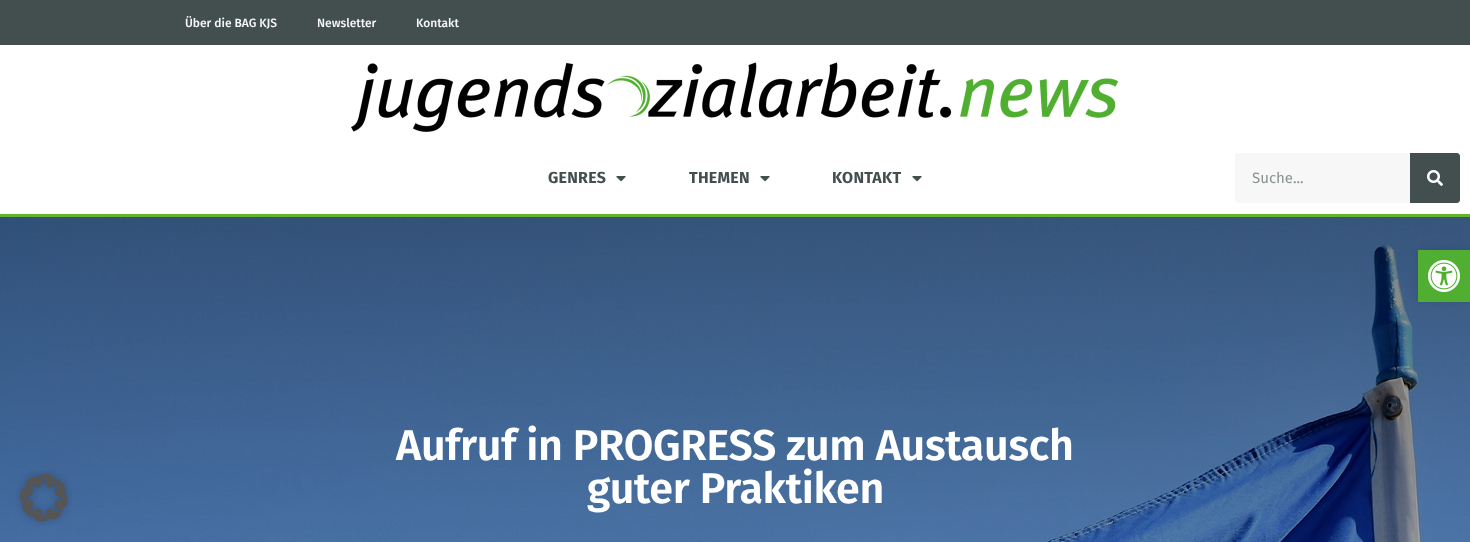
<?xml version="1.0" encoding="UTF-8"?>
<svg xmlns="http://www.w3.org/2000/svg" width="1470" height="542">
    <defs>
        <filter id="blur1" x="-50%" y="-200%" width="200%" height="500%"><feGaussianBlur stdDeviation="5"/></filter>
    </defs>
    <rect width="100%" height="100%" fill="#FFFFFF"/>
    <rect x="0" y="0" width="1470" height="45" fill="#434F4F"/>
    <text x="185" y="27" font-family="Fira Sans" font-size="12" font-weight="500" fill="#F7F7F7">Über die BAG KJS</text>
    <text x="317" y="27" font-family="Fira Sans" font-size="12" font-weight="500" fill="#F7F7F7">Newsletter</text>
    <text x="416" y="27" font-family="Fira Sans" font-size="12" font-weight="500" fill="#F7F7F7">Kontakt</text>
    <image x="351" y="62" width="768" height="70" href="img_01.png"/>
    <rect x="0" y="214" width="1470" height="3" fill="#64B32C"/>
    <text x="548" y="183" font-family="Fira Sans" font-size="16" font-weight="700" letter-spacing="0.25" fill="#434F4F">GENRES</text>
    <image x="616" y="176" width="10" height="6" href="img_02.png"/>
    <text x="689" y="183" font-family="Fira Sans" font-size="16" font-weight="700" letter-spacing="0.25" fill="#434F4F">THEMEN</text>
    <image x="760" y="176" width="10" height="6" href="img_02.png"/>
    <text x="832" y="183" font-family="Fira Sans" font-size="16" font-weight="700" letter-spacing="0.25" fill="#434F4F">KONTAKT</text>
    <image x="912" y="176" width="10" height="6" href="img_02.png"/>
    <rect x="1235" y="153" width="225" height="50" rx="3" fill="#F7F7F7"/>
    <text x="1252" y="183" font-family="Fira Sans" font-size="15" fill="#8B9292">Suche...</text>
    <path d="M 1410 153 H 1457 C 1458.5 153 1460 154.5 1460 156 V 200 C 1460 201.5 1458.5 203 1457 203 H 1410 Z" fill="#434F4F"/>
    <image x="1427" y="170" width="16" height="16" href="img_03.png"/>
    <image x="0" y="217" width="1470" height="325" href="img_06.png"/>
    <rect x="1418" y="250" width="52" height="52" fill="#000000" fill-opacity="0.1" filter="url(#blur1)"/>
    <rect x="1418" y="250" width="52" height="52" fill="#50AF31"/>
    <image x="1428" y="260" width="32" height="32" href="img_04.png"/>
    <image x="16" y="470" width="56" height="56" href="img_05.png"/>
    <text x="396" y="460" font-family="Fira Sans" font-size="43" font-weight="600" letter-spacing="-0.3" fill="#FFFFFF">Aufruf in PROGRESS zum Austausch</text>
    <text x="587" y="503" font-family="Fira Sans" font-size="43" font-weight="600" letter-spacing="-0.3" fill="#FFFFFF">guter Praktiken</text>
</svg>
